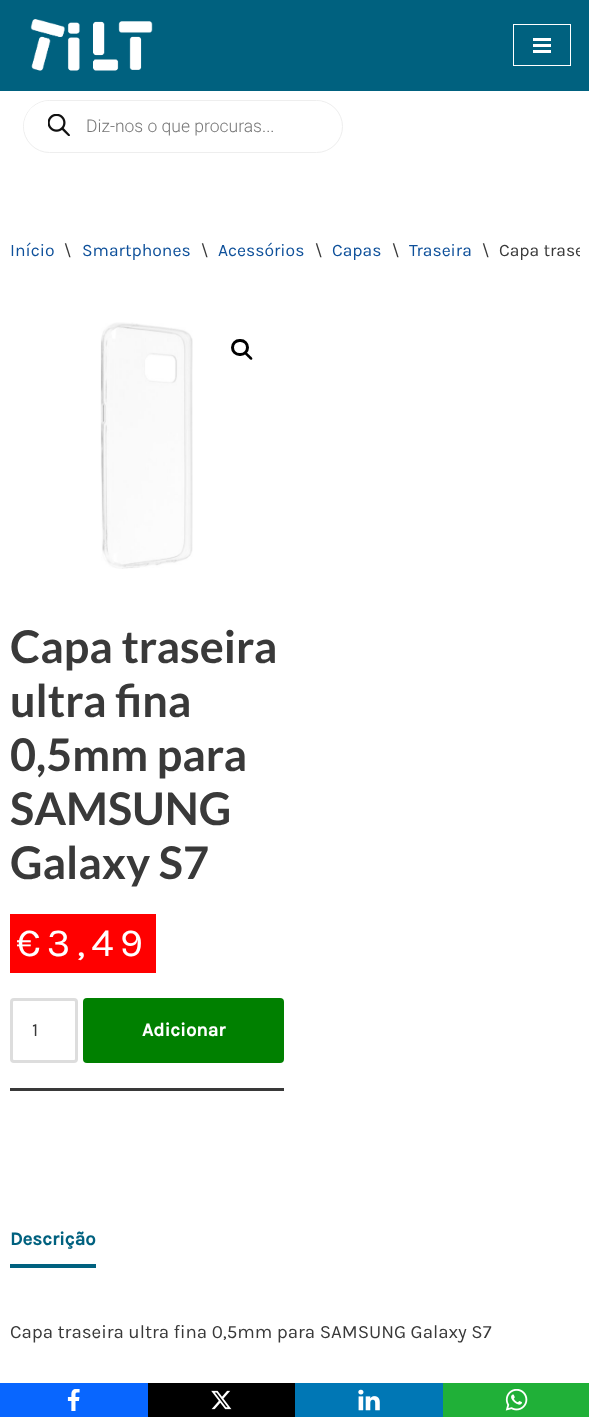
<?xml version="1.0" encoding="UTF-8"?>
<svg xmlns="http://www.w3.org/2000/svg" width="589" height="1417">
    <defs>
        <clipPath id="clip1"><rect x="10" y="236" width="570" height="30"/></clipPath>
    </defs>
    <rect width="100%" height="100%" fill="#FFFFFF"/>
    <rect x="0" y="0" width="589" height="91" fill="#00617F"/>
    <image x="30" y="19" width="123" height="52" href="img_01.png"/>
    <rect x="513.5" y="24.5" width="57" height="41" fill="none" stroke="#FFFFFF"/>
    <rect x="533" y="38" width="18" height="3" fill="#FFFFFF"/>
    <rect x="533" y="44" width="18" height="3" fill="#FFFFFF"/>
    <rect x="533" y="50" width="18" height="3" fill="#FFFFFF"/>
    <rect x="23.5" y="100.5" width="319" height="52" rx="26" fill="none" stroke="#EEEEEE"/>
    <rect x="24" y="101" width="317" height="50" rx="25" fill="#FFFFFF"/>
    <image x="48" y="114" width="22" height="22" href="img_02.png"/>
    <text x="86" y="132" font-family="Roboto" font-size="17.5" font-weight="300" fill="#777777">Diz-nos o que procuras...</text>
    <text x="10" y="256" font-family="Karla" font-size="17.5" fill="#0E509A">Início</text>
    <text x="64" y="256" font-family="Karla" font-size="17.5" fill="#393939">\</text>
    <text x="82" y="256" font-family="Karla" font-size="17.5" fill="#0E509A">Smartphones</text>
    <text x="201" y="256" font-family="Karla" font-size="17.5" fill="#393939">\</text>
    <text x="218" y="256" font-family="Karla" font-size="17.5" fill="#0E509A">Acessórios</text>
    <text x="315" y="256" font-family="Karla" font-size="17.5" fill="#393939">\</text>
    <text x="332" y="256" font-family="Karla" font-size="17.5" fill="#0E509A">Capas</text>
    <text x="392" y="256" font-family="Karla" font-size="17.5" fill="#393939">\</text>
    <text x="409" y="256" font-family="Karla" font-size="17.5" fill="#0E509A">Traseira</text>
    <text x="482" y="256" font-family="Karla" font-size="17.5" fill="#393939">\</text>
    <g clip-path="url(#clip1)">
        <text x="499" y="256" font-family="Karla" font-size="17.5" fill="#393939">Capa trase</text>
    </g>
    <image x="100" y="322" width="93" height="247" href="img_03.png"/>
    <rect x="232.5" y="340.5" width="15" height="14" rx="7" fill="none" stroke="#000000" stroke-width="3"/>
    <path d="M 245 352.5 C 246.5 351 248.5 354.5 249.5 355 C 250 356 253.5 358 252 359.5 C 250.5 361 248.5 357.5 247.5 357 C 247 356 243.5 354 245 352.5 Z" fill="#000000"/>
    <text font-family="Lato" font-size="45" font-weight="700" fill="#393939">
        <tspan x="10" y="663">Capa traseira</tspan>
        <tspan x="10" y="717">ultra fina</tspan>
        <tspan x="10" y="771">0,5mm para</tspan>
        <tspan x="10" y="825">SAMSUNG</tspan>
        <tspan x="10" y="879">Galaxy S7</tspan>
    </text>
    <rect x="10" y="914" width="146" height="59" fill="#FF0000"/>
    <text x="16" y="956" font-family="Karla" font-size="40" letter-spacing="6.25" fill="#FFFFFF">€3,49</text>
    <rect x="10" y="1088" width="274" height="3" fill="#393939"/>
    <rect x="11.5" y="999.5" width="65" height="62" rx="2.5" fill="none" stroke="#DDDDDD" stroke-width="3"/>
    <text x="32" y="1036" font-family="Karla" font-size="18.75" fill="#393939">1</text>
    <rect x="83" y="998" width="201" height="65" rx="4" fill="#008000"/>
    <text x="142" y="1036" font-family="Karla" font-size="18.75" font-weight="700" fill="#FFFFFF">Adicionar</text>
    <rect x="10" y="1264" width="86" height="4" fill="#00617F"/>
    <text x="10" y="1245" font-family="Karla" font-size="18.75" font-weight="700" fill="#00617F">Descrição</text>
    <text x="10" y="1338" font-family="Karla" font-size="18.75" fill="#393939">Capa traseira ultra fina 0,5mm para SAMSUNG Galaxy S7</text>
    <rect x="0" y="1383" width="148" height="34" fill="#0866FF"/>
    <image x="67" y="1389" width="13" height="22" href="img_04.png"/>
    <rect x="148" y="1383" width="147" height="34" fill="#000000"/>
    <image x="211" y="1390" width="21" height="20" href="img_05.png"/>
    <rect x="295" y="1383" width="148" height="34" fill="#0077B5"/>
    <image x="358" y="1389" width="22" height="22" href="img_06.png"/>
    <rect x="443" y="1383" width="146" height="34" fill="#20B038"/>
    <image x="505" y="1389" width="23" height="22" href="img_07.png"/>
</svg>
